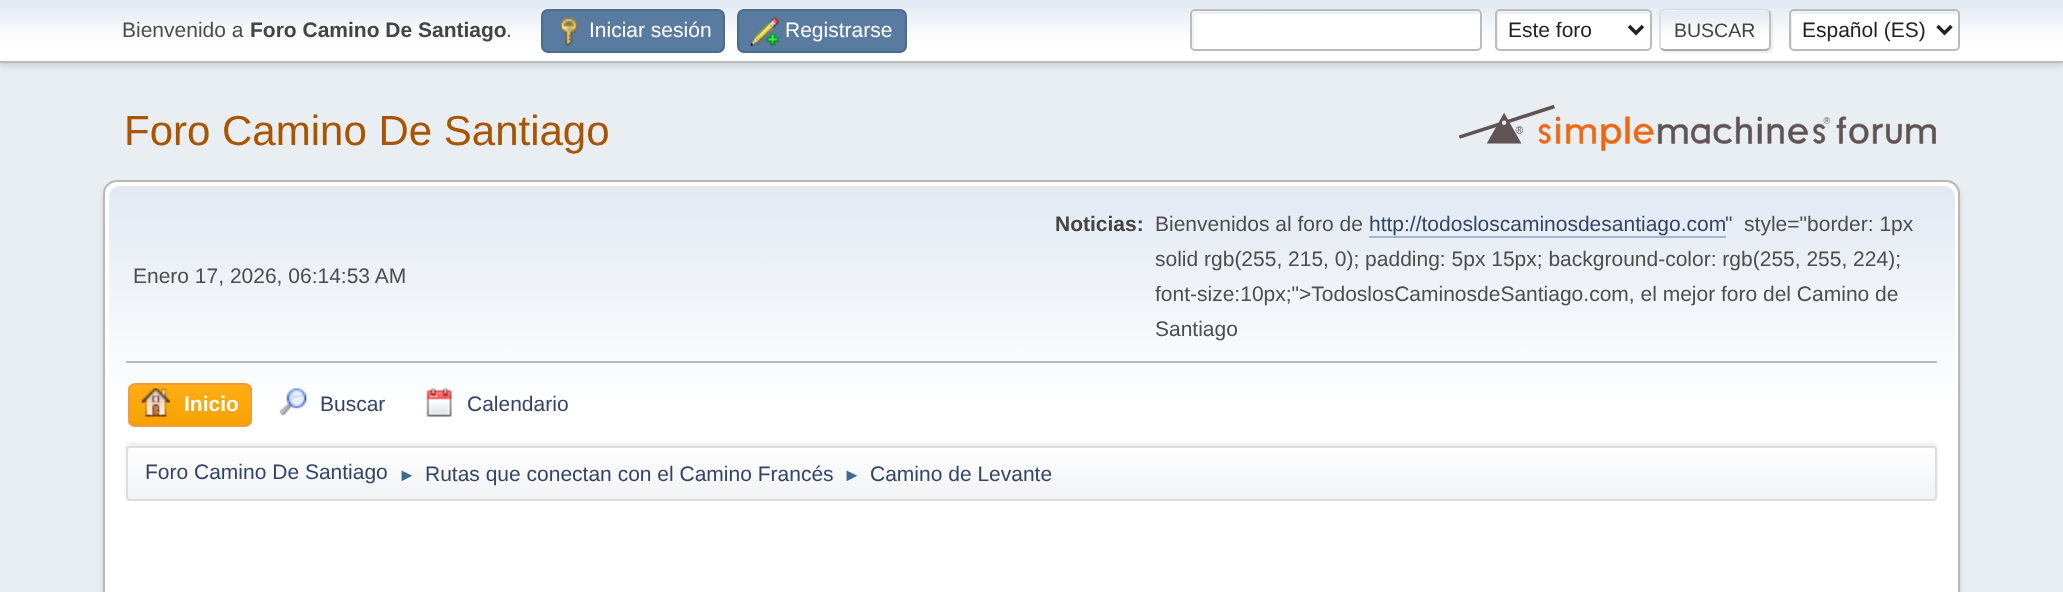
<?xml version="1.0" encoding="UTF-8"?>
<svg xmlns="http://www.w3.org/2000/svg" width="2063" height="592">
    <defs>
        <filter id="blur1" x="-50%" y="-200%" width="200%" height="500%"><feGaussianBlur stdDeviation="3.5"/></filter>
        <linearGradient id="g1" gradientUnits="userSpaceOnUse" x1="1032" y1="0" x2="1032" y2="61"><stop offset="0" stop-color="#E2E9F3"/><stop offset="0.7" stop-color="#FFFFFF"/></linearGradient>
        <filter id="blur2" x="-50%" y="-200%" width="200%" height="500%"><feGaussianBlur stdDeviation="1"/></filter>
        <clipPath id="clip1"><rect x="1659" y="9" width="112" height="42" rx="5"/></clipPath>
        <linearGradient id="g2" gradientUnits="userSpaceOnUse" x1="1715" y1="-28" x2="1715" y2="11"><stop offset="0" stop-color="#E2E9F3"/><stop offset="0.7" stop-color="#FFFFFF"/></linearGradient>
        <linearGradient id="g3" gradientUnits="userSpaceOnUse" x1="1715" y1="10" x2="1715" y2="49"><stop offset="0" stop-color="#E2E9F3"/><stop offset="0.7" stop-color="#FFFFFF"/></linearGradient>
        <linearGradient id="g4" gradientUnits="userSpaceOnUse" x1="1715" y1="49" x2="1715" y2="88"><stop offset="0" stop-color="#E2E9F3"/><stop offset="0.7" stop-color="#FFFFFF"/></linearGradient>
        <filter id="blur3" x="-50%" y="-200%" width="200%" height="500%"><feGaussianBlur stdDeviation="2.5"/></filter>
        <linearGradient id="g5" gradientUnits="userSpaceOnUse" x1="1032" y1="185" x2="1032" y2="504"><stop offset="0" stop-color="#E2E9F3"/><stop offset="0.7" stop-color="#FFFFFF"/></linearGradient>
        <clipPath id="clip2"><rect x="128" y="383" width="124" height="44" rx="7"/></clipPath>
        <linearGradient id="g6" gradientUnits="userSpaceOnUse" x1="190" y1="385" x2="190" y2="425"><stop offset="0" stop-color="#FFAE14"/><stop offset="1" stop-color="#F5A100"/></linearGradient>
        <filter id="blur4" x="-50%" y="-200%" width="200%" height="500%"><feGaussianBlur stdDeviation="2"/></filter>
        <clipPath id="clip3"><rect x="126" y="446" width="1811" height="55" rx="4"/></clipPath>
        <linearGradient id="g7" gradientUnits="userSpaceOnUse" x1="1032" y1="448" x2="1032" y2="499"><stop offset="0" stop-color="#FFFFFF"/><stop offset="0.95" stop-color="#F1F3F5"/></linearGradient>
    </defs>
    <rect width="100%" height="100%" fill="#E9EEF2"/>
    <rect x="0" y="2" width="2063" height="63" fill="#000000" fill-opacity="0.16" filter="url(#blur1)"/>
    <rect x="0" y="0" width="2063" height="61" fill="url(#g1)"/>
    <rect x="0" y="61" width="2063" height="2" fill="#BBBBBB"/>
    <text x="122" y="37" font-family="Liberation Sans" font-size="21" fill="#4D4D4D">Bienvenido a</text>
    <text x="250" y="37" font-family="Liberation Sans" font-size="21" font-weight="700" fill="#444444">Foro Camino De Santiago</text>
    <text x="506" y="37" font-family="Liberation Sans" font-size="21" fill="#4D4D4D">.</text>
    <rect x="542" y="10" width="182" height="42" rx="6" fill="#597B9F" stroke="#4A6B8C" stroke-width="2"/>
    <image x="559" y="17" width="19" height="29" href="img_01.png"/>
    <text x="589" y="37" font-family="Liberation Sans" font-size="21" fill="#FFFFFF">Iniciar sesión</text>
    <rect x="738" y="10" width="168" height="42" rx="6" fill="#597B9F" stroke="#4A6B8C" stroke-width="2"/>
    <image x="750" y="17" width="29" height="29" href="img_02.png"/>
    <text x="785" y="37" font-family="Liberation Sans" font-size="21" fill="#FFFFFF">Registrarse</text>
    <rect x="1190" y="9" width="292" height="42" rx="5" fill="#FFFFFF"/>
    <path d="M 1197 14 H 1479 L 1481 15 C 1481 13 1479 11 1477 11 H 1196 C 1194 11 1192 13 1192 15 V 45 C 1192 46 1193 48 1194 48 V 18 C 1194 16 1195 14 1197 14 Z" fill="#ECF1F8"/>
    <rect x="1191" y="10" width="290" height="40" rx="4" fill="none" stroke="#BBBBBB" stroke-width="2"/>
    <rect x="1495" y="9" width="157" height="42" rx="5" fill="#FFFFFF"/>
    <path d="M 1502 14 H 1648 L 1650 15 C 1650 13 1648 11 1646 11 H 1500 C 1498 11 1496 13 1496 15 V 45 C 1496 46 1497 48 1498 48 V 18 C 1498 16 1500 14 1502 14 Z" fill="#ECF1F8"/>
    <rect x="1496" y="10" width="155" height="40" rx="4" fill="none" stroke="#BBBBBB" stroke-width="2"/>
    <path d="M 1629 26 L 1636 33 L 1643 26" fill="none" stroke="#222222" stroke-width="3.5"/>
    <text x="1508" y="37" font-family="Liberation Sans" font-size="21" fill="#222222">Este foro</text>
    <rect x="1661" y="11" width="112" height="42" rx="5" fill="#DDDDDD" fill-opacity="0.57" filter="url(#blur2)"/>
    <g clip-path="url(#clip1)">
        <rect x="1659" y="9" width="112" height="2" fill="url(#g2)"/>
        <rect x="1659" y="11" width="112" height="38" fill="url(#g3)"/>
        <rect x="1659" y="49" width="112" height="2" fill="url(#g4)"/>
    </g>
    <path d="M 1769 11 C 1769.5 11.5 1770 13 1770 14 V 45.5 C 1770 46.5 1769.5 48 1769 48.5" fill="none" stroke="#BBBBBB" stroke-width="1.8"/>
    <path d="M 1769 48.5 L 1766 50 H 1664 L 1661 48.5" fill="none" stroke="#AAAAAA" stroke-width="1.8"/>
    <path d="M 1661 48.5 C 1659 46.5 1660 42.5 1660 40 V 30 C 1660 6 1656.5 9.5 1681 9.5 H 1766 L 1769 11" fill="none" stroke="#DDDDDD" stroke-width="1.8"/>
    <text x="1674" y="37" font-family="Liberation Sans" font-size="19.5" fill="#444444">BUSCAR</text>
    <rect x="1789" y="9" width="171" height="42" rx="5" fill="#FFFFFF"/>
    <path d="M 1796 14 H 1956 L 1958 15 C 1958 13 1956 11 1954 11 H 1794 C 1792 11 1790 13 1790 15 V 45 C 1790 46 1791 48 1792 48 V 18 C 1792 16 1794 14 1796 14 Z" fill="#ECF1F8"/>
    <rect x="1790" y="10" width="169" height="40" rx="4" fill="none" stroke="#BBBBBB" stroke-width="2"/>
    <path d="M 1937.5 26 L 1944.5 33 L 1951.5 26" fill="none" stroke="#222222" stroke-width="3.5"/>
    <text x="1802" y="37" font-family="Liberation Sans" font-size="21" fill="#222222">Español (ES)</text>
    <text x="124" y="145" font-family="Liberation Sans" font-size="42" fill="#A85400">Foro Camino De Santiago</text>
    <image x="1458" y="104" width="478" height="48" href="img_03.png"/>
    <rect x="103" y="184" width="1857" height="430" rx="14" fill="#000000" fill-opacity="0.14" filter="url(#blur3)"/>
    <rect x="104" y="181" width="1855" height="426" rx="13" fill="#FFFFFF" stroke="#B8B8B8" stroke-width="2"/>
    <path d="M 120 186 H 1944 C 1950 186 1955 191 1955 197 V 504 H 109 V 197 C 109 191 114 186 120 186 Z" fill="url(#g5)"/>
    <rect x="126" y="361" width="1811" height="2" fill="#BBBBBB"/>
    <text x="133" y="283" font-family="Liberation Sans" font-size="21" fill="#4D4D4D">Enero 17, 2026, 06:14:53 AM</text>
    <text x="1055" y="231" font-family="Liberation Sans" font-size="21" font-weight="700" fill="#444444">Noticias:</text>
    <text x="1155" y="231" font-family="Liberation Sans" font-size="21" fill="#4D4D4D">Bienvenidos al foro de</text>
    <text x="1369" y="231" font-family="Liberation Sans" font-size="21" fill="#334466">http://todosloscaminosdesantiago.com</text>
    <rect x="1369" y="236" width="357" height="2" fill="#A8B6CF"/>
    <text x="1725" y="231" font-family="Liberation Sans" font-size="21" fill="#4D4D4D" xml:space="preserve">"  style="border: 1px</text>
    <text font-family="Liberation Sans" font-size="21" fill="#4D4D4D">
        <tspan x="1155" y="266">solid rgb(255, 215, 0); padding: 5px 15px; background-color: rgb(255, 255, 224);</tspan>
        <tspan x="1155" y="301">font-size:10px;"&gt;TodoslosCaminosdeSantiago.com, el mejor foro del Camino de</tspan>
        <tspan x="1155" y="336">Santiago</tspan>
    </text>
    <g clip-path="url(#clip2)">
        <rect x="128" y="385" width="124" height="40" fill="url(#g6)"/>
    </g>
    <rect x="129" y="384" width="122" height="42" rx="6" fill="none" stroke="#F49A3A" stroke-width="2"/>
    <image x="141" y="388" width="29" height="29" href="img_04.png"/>
    <text x="184" y="411" font-family="Liberation Sans" font-size="21" font-weight="700" fill="#FFFFFF">Inicio</text>
    <image x="279" y="388" width="28" height="28" href="img_05.png"/>
    <text x="320" y="411" font-family="Liberation Sans" font-size="21" fill="#334466">Buscar</text>
    <image x="426" y="388" width="26" height="29" href="img_06.png"/>
    <text x="467" y="411" font-family="Liberation Sans" font-size="21" fill="#334466">Calendario</text>
    <rect x="126" y="443" width="1811" height="54" rx="4" fill="#000000" fill-opacity="0.08" filter="url(#blur4)"/>
    <g clip-path="url(#clip3)">
        <rect x="126" y="448" width="1811" height="51" fill="url(#g7)"/>
    </g>
    <rect x="127" y="447" width="1809" height="53" rx="3" fill="none" stroke="#DDDDDD" stroke-width="2"/>
    <text x="145" y="479" font-family="Liberation Sans" font-size="21" fill="#334466">Foro Camino De Santiago</text>
    <text x="398" y="481" font-family="Liberation Sans" font-size="18" fill="#3F6B8C">►</text>
    <text x="425" y="481" font-family="Liberation Sans" font-size="21" fill="#334466">Rutas que conectan con el Camino Francés</text>
    <text x="843" y="481" font-family="Liberation Sans" font-size="18" fill="#3F6B8C">►</text>
    <text x="870" y="481" font-family="Liberation Sans" font-size="21" fill="#334466">Camino de Levante</text>
</svg>
